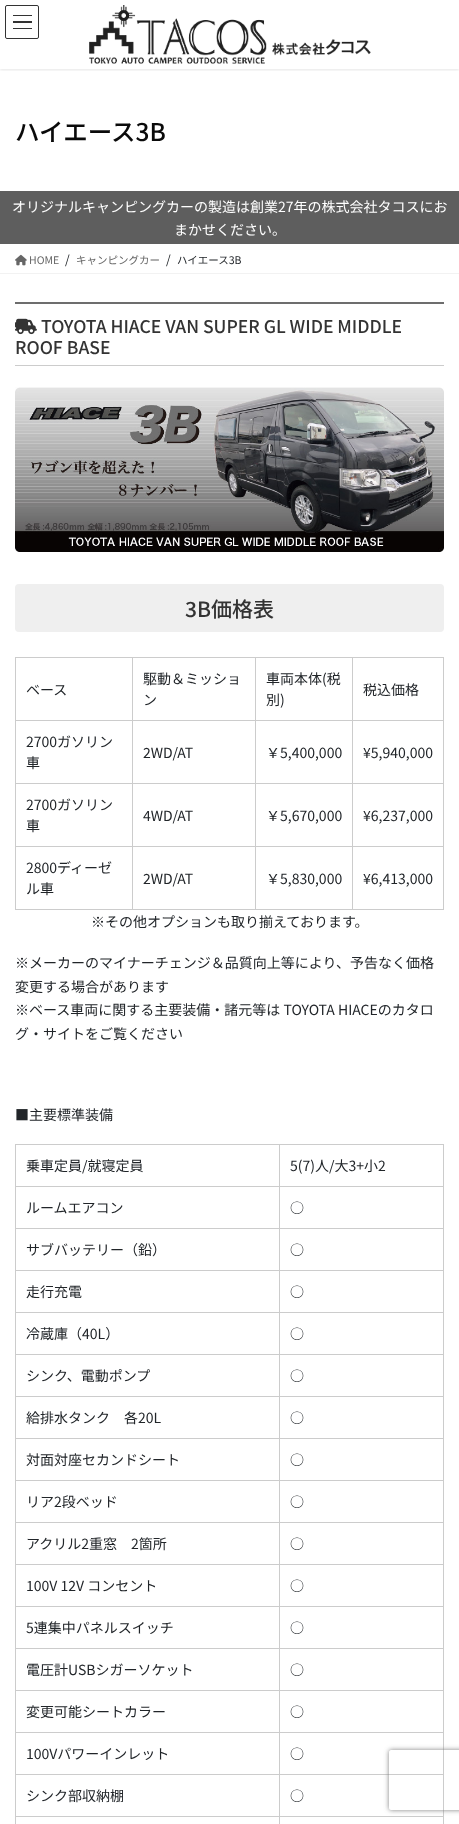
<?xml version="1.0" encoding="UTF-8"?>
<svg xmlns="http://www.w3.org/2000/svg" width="459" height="1824">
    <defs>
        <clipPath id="clip1"><rect x="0" y="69" width="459" height="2"/></clipPath>
        <filter id="blur1" x="-50%" y="-200%" width="200%" height="500%"><feGaussianBlur stdDeviation="1.5"/></filter>
        <clipPath id="clip2"><path d="M 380 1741 H 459 V 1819 H 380 Z M 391 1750 H 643 C 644 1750 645 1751 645 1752 V 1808 C 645 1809 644 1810 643 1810 H 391 C 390 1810 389 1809 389 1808 V 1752 C 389 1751 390 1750 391 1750 Z" clip-rule="evenodd"/></clipPath>
        <filter id="blur2" x="-50%" y="-200%" width="200%" height="500%"><feGaussianBlur stdDeviation="2.5"/></filter>
    </defs>
    <rect width="100%" height="100%" fill="#FFFFFF"/>
    <g clip-path="url(#clip1)">
        <rect x="0" y="1" width="459" height="69" fill="#000000" fill-opacity="0.1" filter="url(#blur1)"/>
    </g>
    <image x="89" y="5" width="282" height="59" href="img_01.png"/>
    <rect x="13" y="15" width="19" height="1" fill="#333333"/>
    <rect x="13" y="21" width="19" height="2" fill="#333333"/>
    <rect x="13" y="28" width="19" height="1" fill="#333333"/>
    <rect x="5.5" y="5.5" width="33" height="33" rx="1.5" fill="none" stroke="#333333"/>
    <text x="15" y="141" font-family="Noto Sans JP" font-size="24.5" font-weight="500" fill="#0A0A0A">ハイエース3B</text>
    <rect x="0" y="191" width="459" height="53" fill="#5E5E5E"/>
    <text x="12" y="212" font-family="Noto Sans JP" font-size="14" fill="#FFFFFF">オリジナルキャンピングカーの製造は創業27年の株式会社タコスにお</text>
    <text x="174" y="235" font-family="Noto Sans JP" font-size="14" fill="#FFFFFF">まかせください。</text>
    <rect x="0" y="273" width="459" height="1" fill="#F2F2F2"/>
    <image x="15" y="254" width="12" height="12" href="img_02.png"/>
    <text x="29" y="264" font-family="Noto Sans JP" font-size="10.5" fill="#666666">HOME</text>
    <text x="65" y="264" font-family="Noto Sans JP" font-size="12" fill="#212529">/</text>
    <text x="76" y="264" font-family="Noto Sans JP" font-size="10.5" fill="#666666">キャンピングカー</text>
    <text x="166" y="264" font-family="Noto Sans JP" font-size="12" fill="#212529">/</text>
    <text x="177" y="264" font-family="Noto Sans JP" font-size="10.5" fill="#212529">ハイエース3B</text>
    <rect x="15" y="302" width="429" height="2" fill="#6D6D6D"/>
    <rect x="15" y="365" width="429" height="1" fill="#CCCCCC"/>
    <image x="15" y="318" width="22" height="17" href="img_03.png"/>
    <text x="41" y="333" font-family="Noto Sans JP" font-size="17.5" font-weight="500" fill="#333333">TOYOTA HIACE VAN SUPER GL WIDE MIDDLE</text>
    <text x="15" y="354" font-family="Noto Sans JP" font-size="17.5" font-weight="500" fill="#333333">ROOF BASE</text>
    <image x="15" y="387" width="429" height="165" href="img_04.png"/>
    <rect x="15" y="584" width="429" height="48" rx="4" fill="#EFEFEF"/>
    <text x="185" y="617" font-family="Noto Sans JP" font-size="21" font-weight="500" fill="#333333">3B価格表</text>
    <rect x="352" y="657" width="92" height="1" fill="#CCCCCC"/>
    <rect x="352" y="720" width="92" height="1" fill="#CCCCCC"/>
    <rect x="352" y="783" width="92" height="1" fill="#CCCCCC"/>
    <rect x="352" y="846" width="92" height="1" fill="#CCCCCC"/>
    <rect x="443" y="846" width="1" height="64" fill="#CCCCCC"/>
    <rect x="352" y="909" width="92" height="1" fill="#CCCCCC"/>
    <rect x="352" y="846" width="1" height="64" fill="#CCCCCC"/>
    <rect x="255" y="846" width="98" height="1" fill="#CCCCCC"/>
    <rect x="352" y="783" width="1" height="64" fill="#CCCCCC"/>
    <rect x="255" y="783" width="98" height="1" fill="#CCCCCC"/>
    <rect x="352" y="720" width="1" height="64" fill="#CCCCCC"/>
    <rect x="255" y="720" width="98" height="1" fill="#CCCCCC"/>
    <rect x="352" y="657" width="1" height="64" fill="#CCCCCC"/>
    <rect x="255" y="657" width="98" height="1" fill="#CCCCCC"/>
    <rect x="255" y="909" width="98" height="1" fill="#CCCCCC"/>
    <rect x="255" y="846" width="1" height="64" fill="#CCCCCC"/>
    <rect x="132" y="846" width="124" height="1" fill="#CCCCCC"/>
    <rect x="255" y="783" width="1" height="64" fill="#CCCCCC"/>
    <rect x="132" y="783" width="124" height="1" fill="#CCCCCC"/>
    <rect x="255" y="720" width="1" height="64" fill="#CCCCCC"/>
    <rect x="132" y="720" width="124" height="1" fill="#CCCCCC"/>
    <rect x="255" y="657" width="1" height="64" fill="#CCCCCC"/>
    <rect x="132" y="657" width="124" height="1" fill="#CCCCCC"/>
    <rect x="132" y="909" width="124" height="1" fill="#CCCCCC"/>
    <rect x="132" y="846" width="1" height="64" fill="#CCCCCC"/>
    <rect x="15" y="846" width="118" height="1" fill="#CCCCCC"/>
    <rect x="132" y="783" width="1" height="64" fill="#CCCCCC"/>
    <rect x="15" y="783" width="118" height="1" fill="#CCCCCC"/>
    <rect x="132" y="720" width="1" height="64" fill="#CCCCCC"/>
    <rect x="15" y="720" width="118" height="1" fill="#CCCCCC"/>
    <rect x="132" y="657" width="1" height="64" fill="#CCCCCC"/>
    <rect x="15" y="657" width="118" height="1" fill="#CCCCCC"/>
    <rect x="15" y="909" width="118" height="1" fill="#CCCCCC"/>
    <rect x="15" y="846" width="1" height="64" fill="#CCCCCC"/>
    <rect x="15" y="783" width="1" height="64" fill="#CCCCCC"/>
    <rect x="15" y="720" width="1" height="64" fill="#CCCCCC"/>
    <rect x="15" y="657" width="1" height="64" fill="#CCCCCC"/>
    <text x="26" y="695" font-family="Noto Sans JP" font-size="14" fill="#212529">ベース</text>
    <text font-family="Noto Sans JP" font-size="14" fill="#212529">
        <tspan x="143" y="684">駆動＆ミッショ</tspan>
        <tspan x="143" y="705">ン</tspan>
    </text>
    <text font-family="Noto Sans JP" font-size="14" fill="#212529">
        <tspan x="266" y="684">車両本体(税</tspan>
        <tspan x="266" y="705">別)</tspan>
    </text>
    <rect x="443" y="783" width="1" height="64" fill="#CCCCCC"/>
    <rect x="443" y="720" width="1" height="64" fill="#CCCCCC"/>
    <rect x="443" y="657" width="1" height="64" fill="#CCCCCC"/>
    <text x="363" y="695" font-family="Noto Sans JP" font-size="14" fill="#212529">税込価格</text>
    <text font-family="Noto Sans JP" font-size="14" fill="#212529">
        <tspan x="26" y="747">2700ガソリン</tspan>
        <tspan x="26" y="768">車</tspan>
    </text>
    <text x="143" y="758" font-family="Noto Sans JP" font-size="14" fill="#212529">2WD/AT</text>
    <text x="266" y="758" font-family="Noto Sans JP" font-size="14" fill="#212529">￥5,400,000</text>
    <text x="363" y="758" font-family="Noto Sans JP" font-size="14" fill="#212529">¥5,940,000</text>
    <text font-family="Noto Sans JP" font-size="14" fill="#212529">
        <tspan x="26" y="810">2700ガソリン</tspan>
        <tspan x="26" y="831">車</tspan>
    </text>
    <text x="143" y="821" font-family="Noto Sans JP" font-size="14" fill="#212529">4WD/AT</text>
    <text x="266" y="821" font-family="Noto Sans JP" font-size="14" fill="#212529">￥5,670,000</text>
    <text x="363" y="821" font-family="Noto Sans JP" font-size="14" fill="#212529">¥6,237,000</text>
    <text font-family="Noto Sans JP" font-size="14" fill="#212529">
        <tspan x="26" y="873">2800ディーゼ</tspan>
        <tspan x="26" y="894">ル車</tspan>
    </text>
    <text x="143" y="884" font-family="Noto Sans JP" font-size="14" fill="#212529">2WD/AT</text>
    <text x="266" y="884" font-family="Noto Sans JP" font-size="14" fill="#212529">￥5,830,000</text>
    <text x="363" y="884" font-family="Noto Sans JP" font-size="14" fill="#212529">¥6,413,000</text>
    <text x="91" y="927" font-family="Noto Sans JP" font-size="14" fill="#212529">※その他オプションも取り揃えております。</text>
    <text font-family="Noto Sans JP" font-size="14" fill="#212529">
        <tspan x="15" y="968">※メーカーのマイナーチェンジ＆品質向上等により、予告なく価格</tspan>
        <tspan x="15" y="992">変更する場合があります</tspan>
        <tspan x="15" y="1015">※ベース車両に関する主要装備・諸元等は TOYOTA HIACEのカタロ</tspan>
        <tspan x="15" y="1039">グ・サイトをご覧ください</tspan>
    </text>
    <text x="15" y="1120" font-family="Noto Sans JP" font-size="14" fill="#212529">■主要標準装備</text>
    <rect x="279" y="1144" width="165" height="1" fill="#CCCCCC"/>
    <rect x="279" y="1186" width="165" height="1" fill="#CCCCCC"/>
    <rect x="279" y="1228" width="165" height="1" fill="#CCCCCC"/>
    <rect x="279" y="1270" width="165" height="1" fill="#CCCCCC"/>
    <rect x="279" y="1312" width="165" height="1" fill="#CCCCCC"/>
    <rect x="279" y="1354" width="165" height="1" fill="#CCCCCC"/>
    <rect x="279" y="1396" width="165" height="1" fill="#CCCCCC"/>
    <rect x="279" y="1438" width="165" height="1" fill="#CCCCCC"/>
    <rect x="279" y="1480" width="165" height="1" fill="#CCCCCC"/>
    <rect x="279" y="1522" width="165" height="1" fill="#CCCCCC"/>
    <rect x="279" y="1564" width="165" height="1" fill="#CCCCCC"/>
    <rect x="279" y="1606" width="165" height="1" fill="#CCCCCC"/>
    <rect x="279" y="1648" width="165" height="1" fill="#CCCCCC"/>
    <rect x="279" y="1690" width="165" height="1" fill="#CCCCCC"/>
    <rect x="279" y="1732" width="165" height="1" fill="#CCCCCC"/>
    <rect x="279" y="1774" width="165" height="1" fill="#CCCCCC"/>
    <rect x="279" y="1816" width="165" height="1" fill="#CCCCCC"/>
    <rect x="279" y="1816" width="1" height="8" fill="#CCCCCC"/>
    <rect x="15" y="1816" width="265" height="1" fill="#CCCCCC"/>
    <rect x="279" y="1774" width="1" height="43" fill="#CCCCCC"/>
    <rect x="15" y="1774" width="265" height="1" fill="#CCCCCC"/>
    <rect x="279" y="1732" width="1" height="43" fill="#CCCCCC"/>
    <rect x="15" y="1732" width="265" height="1" fill="#CCCCCC"/>
    <rect x="279" y="1690" width="1" height="43" fill="#CCCCCC"/>
    <rect x="15" y="1690" width="265" height="1" fill="#CCCCCC"/>
    <rect x="279" y="1648" width="1" height="43" fill="#CCCCCC"/>
    <rect x="15" y="1648" width="265" height="1" fill="#CCCCCC"/>
    <rect x="279" y="1606" width="1" height="43" fill="#CCCCCC"/>
    <rect x="15" y="1606" width="265" height="1" fill="#CCCCCC"/>
    <rect x="279" y="1564" width="1" height="43" fill="#CCCCCC"/>
    <rect x="15" y="1564" width="265" height="1" fill="#CCCCCC"/>
    <rect x="279" y="1522" width="1" height="43" fill="#CCCCCC"/>
    <rect x="15" y="1522" width="265" height="1" fill="#CCCCCC"/>
    <rect x="279" y="1480" width="1" height="43" fill="#CCCCCC"/>
    <rect x="15" y="1480" width="265" height="1" fill="#CCCCCC"/>
    <rect x="279" y="1438" width="1" height="43" fill="#CCCCCC"/>
    <rect x="15" y="1438" width="265" height="1" fill="#CCCCCC"/>
    <rect x="279" y="1396" width="1" height="43" fill="#CCCCCC"/>
    <rect x="15" y="1396" width="265" height="1" fill="#CCCCCC"/>
    <rect x="279" y="1354" width="1" height="43" fill="#CCCCCC"/>
    <rect x="15" y="1354" width="265" height="1" fill="#CCCCCC"/>
    <rect x="279" y="1312" width="1" height="43" fill="#CCCCCC"/>
    <rect x="15" y="1312" width="265" height="1" fill="#CCCCCC"/>
    <rect x="279" y="1270" width="1" height="43" fill="#CCCCCC"/>
    <rect x="15" y="1270" width="265" height="1" fill="#CCCCCC"/>
    <rect x="279" y="1228" width="1" height="43" fill="#CCCCCC"/>
    <rect x="15" y="1228" width="265" height="1" fill="#CCCCCC"/>
    <rect x="279" y="1186" width="1" height="43" fill="#CCCCCC"/>
    <rect x="15" y="1186" width="265" height="1" fill="#CCCCCC"/>
    <rect x="279" y="1144" width="1" height="43" fill="#CCCCCC"/>
    <rect x="15" y="1144" width="265" height="1" fill="#CCCCCC"/>
    <rect x="15" y="1816" width="1" height="8" fill="#CCCCCC"/>
    <rect x="15" y="1774" width="1" height="43" fill="#CCCCCC"/>
    <rect x="15" y="1732" width="1" height="43" fill="#CCCCCC"/>
    <rect x="15" y="1690" width="1" height="43" fill="#CCCCCC"/>
    <rect x="15" y="1648" width="1" height="43" fill="#CCCCCC"/>
    <rect x="15" y="1606" width="1" height="43" fill="#CCCCCC"/>
    <rect x="15" y="1564" width="1" height="43" fill="#CCCCCC"/>
    <rect x="15" y="1522" width="1" height="43" fill="#CCCCCC"/>
    <rect x="15" y="1480" width="1" height="43" fill="#CCCCCC"/>
    <rect x="15" y="1438" width="1" height="43" fill="#CCCCCC"/>
    <rect x="15" y="1396" width="1" height="43" fill="#CCCCCC"/>
    <rect x="15" y="1354" width="1" height="43" fill="#CCCCCC"/>
    <rect x="15" y="1312" width="1" height="43" fill="#CCCCCC"/>
    <rect x="15" y="1270" width="1" height="43" fill="#CCCCCC"/>
    <rect x="15" y="1228" width="1" height="43" fill="#CCCCCC"/>
    <rect x="15" y="1186" width="1" height="43" fill="#CCCCCC"/>
    <rect x="15" y="1144" width="1" height="43" fill="#CCCCCC"/>
    <text x="26" y="1171" font-family="Noto Sans JP" font-size="14" fill="#212529">乗車定員/就寝定員</text>
    <rect x="443" y="1816" width="1" height="8" fill="#CCCCCC"/>
    <rect x="443" y="1774" width="1" height="43" fill="#CCCCCC"/>
    <rect x="443" y="1732" width="1" height="43" fill="#CCCCCC"/>
    <rect x="443" y="1690" width="1" height="43" fill="#CCCCCC"/>
    <rect x="443" y="1648" width="1" height="43" fill="#CCCCCC"/>
    <rect x="443" y="1606" width="1" height="43" fill="#CCCCCC"/>
    <rect x="443" y="1564" width="1" height="43" fill="#CCCCCC"/>
    <rect x="443" y="1522" width="1" height="43" fill="#CCCCCC"/>
    <rect x="443" y="1480" width="1" height="43" fill="#CCCCCC"/>
    <rect x="443" y="1438" width="1" height="43" fill="#CCCCCC"/>
    <rect x="443" y="1396" width="1" height="43" fill="#CCCCCC"/>
    <rect x="443" y="1354" width="1" height="43" fill="#CCCCCC"/>
    <rect x="443" y="1312" width="1" height="43" fill="#CCCCCC"/>
    <rect x="443" y="1270" width="1" height="43" fill="#CCCCCC"/>
    <rect x="443" y="1228" width="1" height="43" fill="#CCCCCC"/>
    <rect x="443" y="1186" width="1" height="43" fill="#CCCCCC"/>
    <rect x="443" y="1144" width="1" height="43" fill="#CCCCCC"/>
    <text x="290" y="1171" font-family="Noto Sans JP" font-size="14" fill="#212529">5(7)人/大3+小2</text>
    <text x="26" y="1213" font-family="Noto Sans JP" font-size="14" fill="#212529">ルームエアコン</text>
    <text x="290" y="1213" font-family="Noto Sans JP" font-size="14" fill="#212529">○</text>
    <text x="26" y="1255" font-family="Noto Sans JP" font-size="14" fill="#212529">サブバッテリー（鉛）</text>
    <text x="290" y="1255" font-family="Noto Sans JP" font-size="14" fill="#212529">○</text>
    <text x="26" y="1297" font-family="Noto Sans JP" font-size="14" fill="#212529">走行充電</text>
    <text x="290" y="1297" font-family="Noto Sans JP" font-size="14" fill="#212529">○</text>
    <text x="26" y="1339" font-family="Noto Sans JP" font-size="14" fill="#212529">冷蔵庫（40L）</text>
    <text x="290" y="1339" font-family="Noto Sans JP" font-size="14" fill="#212529">○</text>
    <text x="26" y="1381" font-family="Noto Sans JP" font-size="14" fill="#212529">シンク、電動ポンプ</text>
    <text x="290" y="1381" font-family="Noto Sans JP" font-size="14" fill="#212529">○</text>
    <text x="26" y="1423" font-family="Noto Sans JP" font-size="14" fill="#212529">給排水タンク　各20L</text>
    <text x="290" y="1423" font-family="Noto Sans JP" font-size="14" fill="#212529">○</text>
    <text x="26" y="1465" font-family="Noto Sans JP" font-size="14" fill="#212529">対面対座セカンドシート</text>
    <text x="290" y="1465" font-family="Noto Sans JP" font-size="14" fill="#212529">○</text>
    <text x="26" y="1507" font-family="Noto Sans JP" font-size="14" fill="#212529">リア2段ベッド</text>
    <text x="290" y="1507" font-family="Noto Sans JP" font-size="14" fill="#212529">○</text>
    <text x="26" y="1549" font-family="Noto Sans JP" font-size="14" fill="#212529">アクリル2重窓　2箇所</text>
    <text x="290" y="1549" font-family="Noto Sans JP" font-size="14" fill="#212529">○</text>
    <text x="26" y="1591" font-family="Noto Sans JP" font-size="14" fill="#212529">100V 12V コンセント</text>
    <text x="290" y="1591" font-family="Noto Sans JP" font-size="14" fill="#212529">○</text>
    <text x="26" y="1633" font-family="Noto Sans JP" font-size="14" fill="#212529">5連集中パネルスイッチ</text>
    <text x="290" y="1633" font-family="Noto Sans JP" font-size="14" fill="#212529">○</text>
    <text x="26" y="1675" font-family="Noto Sans JP" font-size="14" fill="#212529">電圧計USBシガーソケット</text>
    <text x="290" y="1675" font-family="Noto Sans JP" font-size="14" fill="#212529">○</text>
    <text x="26" y="1717" font-family="Noto Sans JP" font-size="14" fill="#212529">変更可能シートカラー</text>
    <text x="290" y="1717" font-family="Noto Sans JP" font-size="14" fill="#212529">○</text>
    <text x="26" y="1759" font-family="Noto Sans JP" font-size="14" fill="#212529">100Vパワーインレット</text>
    <text x="290" y="1759" font-family="Noto Sans JP" font-size="14" fill="#212529">○</text>
    <text x="26" y="1801" font-family="Noto Sans JP" font-size="14" fill="#212529">シンク部収納棚</text>
    <text x="290" y="1801" font-family="Noto Sans JP" font-size="14" fill="#212529">○</text>
    <g clip-path="url(#clip2)">
        <rect x="389" y="1750" width="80" height="60" rx="2" fill="#808080" filter="url(#blur2)"/>
    </g>
</svg>
